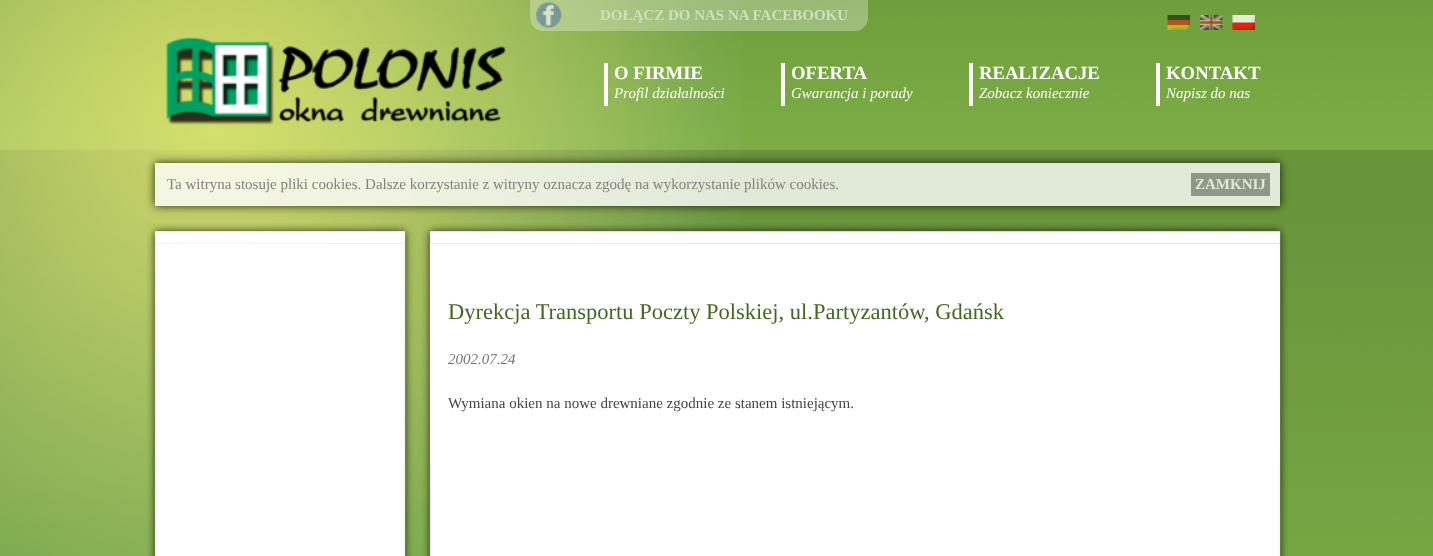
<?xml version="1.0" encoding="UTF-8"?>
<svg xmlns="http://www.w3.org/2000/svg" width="1433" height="556">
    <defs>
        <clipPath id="clip1"><path d="M 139 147 H 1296 V 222 H 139 Z M 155 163 H 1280 V 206 H 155 Z" clip-rule="evenodd"/></clipPath>
        <filter id="blur1" x="-50%" y="-200%" width="200%" height="500%"><feGaussianBlur stdDeviation="5"/></filter>
    </defs>
    <rect width="100%" height="100%" fill="#FFFFFF"/>
    <image x="0" y="0" width="1433" height="556" href="img_01.png"/>
    <image x="0" y="0" width="743" height="556" href="img_02.png"/>
    <path d="M 530 0 H 868 V 18 C 868 25 862 31 855 31 H 543 C 536 31 530 25 530 18 Z" fill="#FFFFFF" fill-opacity="0.3"/>
    <image x="536" y="2" width="26" height="26" href="img_03.png"/>
    <text x="600" y="20" font-family="Liberation Serif" font-size="15" font-weight="700" fill="#D0DFBE">DOŁĄCZ DO NAS NA FACEBOOKU</text>
    <image x="1167" y="15" width="23" height="15" href="img_04.png"/>
    <image x="1200" y="15" width="23" height="15" href="img_05.png"/>
    <image x="1232" y="15" width="23" height="15" href="img_06.png"/>
    <image x="166" y="37" width="340" height="88" href="img_07.png"/>
    <rect x="604" y="63" width="4" height="43" fill="#FFFFFF"/>
    <text x="614" y="79" font-family="Liberation Serif" font-size="18.75" font-weight="700" fill="#FFFFFF">O FIRMIE</text>
    <text x="614" y="98" font-family="Liberation Serif" font-size="15" font-style="italic" fill="#FFFFFF">Profil działalności</text>
    <rect x="781" y="63" width="4" height="43" fill="#FFFFFF"/>
    <text x="791" y="79" font-family="Liberation Serif" font-size="18.75" font-weight="700" fill="#FFFFFF">OFERTA</text>
    <text x="791" y="98" font-family="Liberation Serif" font-size="15" font-style="italic" fill="#FFFFFF">Gwarancja i porady</text>
    <rect x="969" y="63" width="4" height="43" fill="#FFFFFF"/>
    <text x="979" y="79" font-family="Liberation Serif" font-size="18.75" font-weight="700" fill="#FFFFFF">REALIZACJE</text>
    <text x="979" y="98" font-family="Liberation Serif" font-size="15" font-style="italic" fill="#FFFFFF">Zobacz koniecznie</text>
    <rect x="1156" y="63" width="4" height="43" fill="#FFFFFF"/>
    <text x="1166" y="79" font-family="Liberation Serif" font-size="18.75" font-weight="700" fill="#FFFFFF">KONTAKT</text>
    <text x="1166" y="98" font-family="Liberation Serif" font-size="15" font-style="italic" fill="#FFFFFF">Napisz do nas</text>
    <g clip-path="url(#clip1)">
        <rect x="155" y="163" width="1125" height="43" fill="#000000" fill-opacity="0.8" filter="url(#blur1)"/>
    </g>
    <rect x="155" y="163" width="1125" height="43" fill="#FFFFFF" fill-opacity="0.8"/>
    <text x="167" y="189" font-family="Liberation Serif" font-size="15" fill="#81827E">Ta witryna stosuje pliki cookies. Dalsze korzystanie z witryny oznacza zgodę na wykorzystanie plików cookies.</text>
    <rect x="1191" y="173" width="79" height="23" fill="#8F9886"/>
    <text x="1195" y="189" font-family="Liberation Serif" font-size="15" font-weight="700" fill="#E1EAD8">ZAMKNIJ</text>
    <image x="149" y="223" width="1137" height="9" href="img_08.png"/>
    <image x="147" y="231" width="1141" height="13" href="img_09.png"/>
    <image x="147" y="243" width="1141" height="313" href="img_10.png"/>
    <rect x="430" y="244" width="850" height="219" fill="#FFFFFF"/>
    <text x="448" y="319" font-family="Liberation Serif" font-size="22.5" fill="#446623">Dyrekcja Transportu Poczty Polskiej, ul.Partyzantów, Gdańsk</text>
    <text x="448" y="364" font-family="Liberation Serif" font-size="15" font-style="italic" fill="#767676">2002.07.24</text>
    <text x="448" y="408" font-family="Liberation Serif" font-size="15" fill="#444444">Wymiana okien na nowe drewniane zgodnie ze stanem istniejącym.</text>
</svg>
